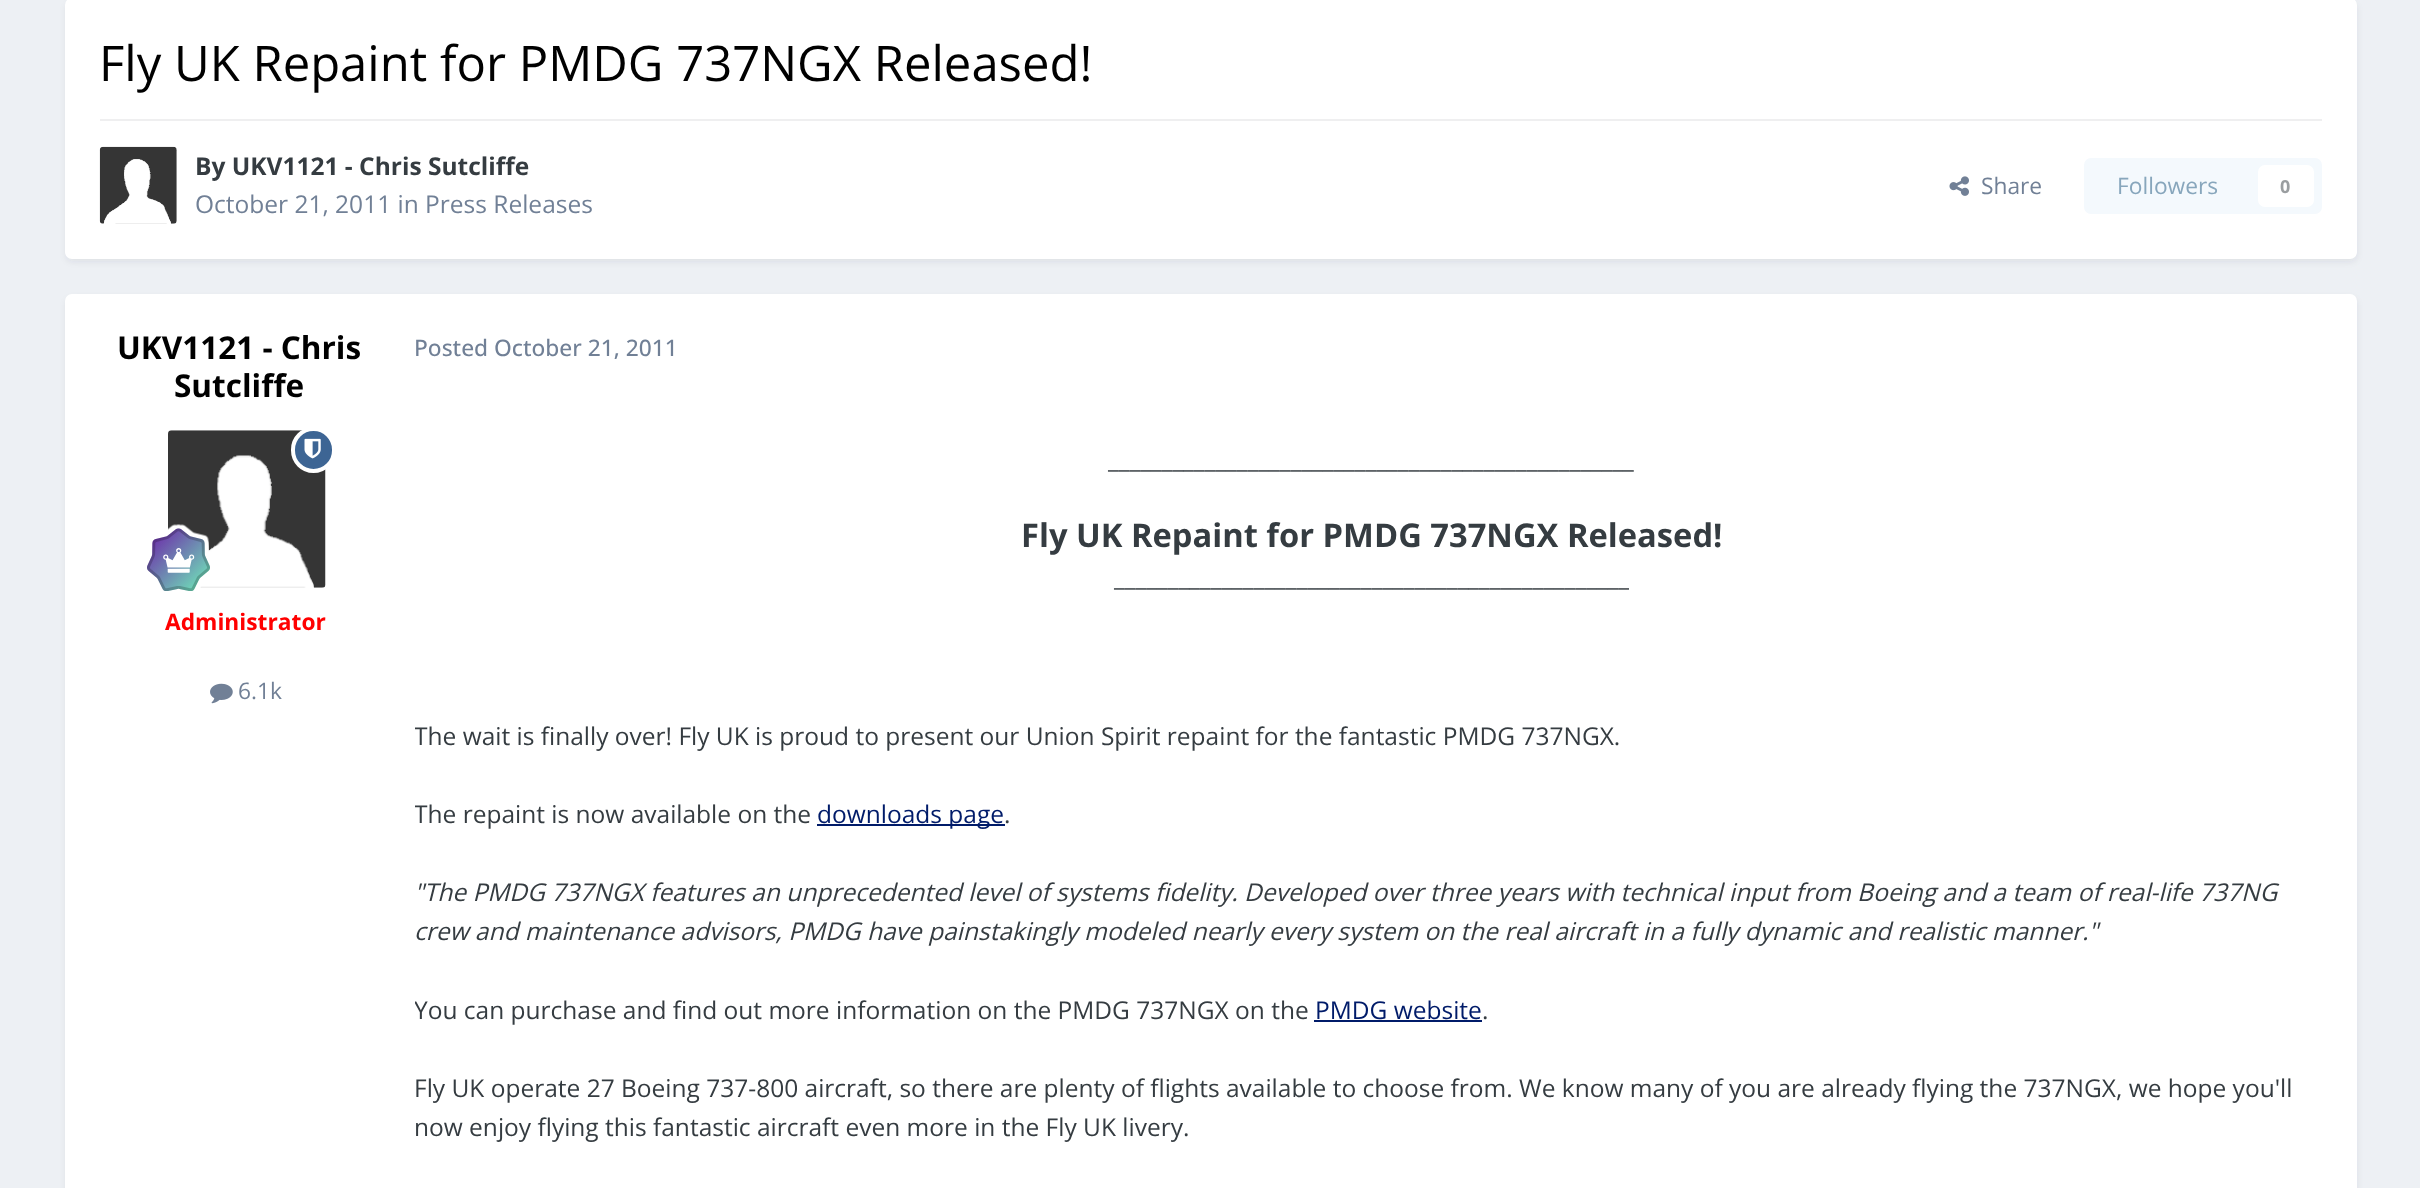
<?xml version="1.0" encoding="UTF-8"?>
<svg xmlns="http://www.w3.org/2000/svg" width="2420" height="1188">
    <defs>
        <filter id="blur1" x="-50%" y="-200%" width="200%" height="500%"><feGaussianBlur stdDeviation="3.5"/></filter>
        <clipPath id="clip1"><rect x="415" y="399" width="1914" height="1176"/></clipPath>
    </defs>
    <rect width="100%" height="100%" fill="#EDF0F4"/>
    <rect x="67" y="4" width="2289" height="257" rx="5" fill="#2D3748" fill-opacity="0.1" filter="url(#blur1)"/>
    <rect x="65" y="-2" width="2292" height="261" rx="7" fill="#FFFFFF"/>
    <text x="99" y="81" font-family="Open Sans" font-size="49" fill="#000000">Fly UK Repaint for PMDG 737NGX Released!</text>
    <rect x="100" y="119" width="2222" height="2" fill="#EFEFF0"/>
    <image x="99" y="146" width="78" height="78" href="img_01.png"/>
    <text x="195" y="175" font-family="Open Sans" font-size="24.5" font-weight="700" fill="#353C41">By UKV1121 - Chris Sutcliffe</text>
    <text x="195" y="213" font-family="Open Sans" font-size="24.5" fill="#718096">October 21, 2011 in Press Releases</text>
    <image x="1949" y="176" width="20" height="20" href="img_02.png"/>
    <text x="1981" y="194" font-family="Open Sans" font-size="22.75" fill="#718096">Share</text>
    <rect x="2084" y="158" width="238" height="56" rx="7" fill="#F4F9FD"/>
    <text x="2117" y="194" font-family="Open Sans" font-size="22.75" fill="#87A6BC">Followers</text>
    <rect x="2258" y="165" width="56" height="42" rx="7" fill="#FFFFFF"/>
    <text x="2280" y="193" font-family="Open Sans" font-size="18" font-weight="700" fill="#9A9EA0">0</text>
    <rect x="67" y="299" width="2289" height="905" rx="5" fill="#2D3748" fill-opacity="0.1" filter="url(#blur1)"/>
    <rect x="65" y="294" width="2292" height="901" rx="7" fill="#FFFFFF"/>
    <text x="117" y="359" font-family="Open Sans" font-size="31.5" font-weight="700" fill="#000000">UKV1121 - Chris</text>
    <text x="174" y="397" font-family="Open Sans" font-size="31.5" font-weight="700" fill="#000000">Sutcliffe</text>
    <image x="168" y="430" width="158" height="158" href="img_04.png"/>
    <rect x="293" y="429" width="41" height="42" rx="20.5" fill="#3D6594" stroke="#FFFFFF" stroke-width="4"/>
    <image x="304" y="438" width="17" height="21" href="img_03.png"/>
    <image x="147" y="524" width="63" height="67" href="img_05.png"/>
    <text x="165" y="630" font-family="Open Sans" font-size="22.75" font-weight="700" fill="#FF0000">Administrator</text>
    <image x="210" y="683" width="23" height="21" href="img_06.png"/>
    <text x="238" y="699" font-family="Open Sans" font-size="22.75" fill="#718096">6.1k</text>
    <text x="414" y="356" font-family="Open Sans" font-size="22.75" font-weight="500" fill="#718096">Posted October 21, 2011</text>
    <text x="1108" y="468" font-family="Open Sans" font-size="24.5" fill="#353C41">_________________________________________________</text>
    <text x="1021" y="547" font-family="Open Sans" font-size="32.7" font-weight="700" fill="#353C41">Fly UK Repaint for PMDG 737NGX Released!</text>
    <text x="1114" y="586" font-family="Open Sans" font-size="24.5" fill="#353C41">________________________________________________</text>
    <g clip-path="url(#clip1)">
        <text x="414" y="745" font-family="Open Sans" font-size="24.5" fill="#353C41">The wait is finally over! Fly UK is proud to present our Union Spirit repaint for the fantastic PMDG 737NGX.</text>
        <text x="414" y="823" font-family="Open Sans" font-size="24.5" fill="#353C41">The repaint is now available on the</text>
    </g>
    <rect x="817" y="824" width="188" height="2" fill="#001B69"/>
    <text x="817" y="823" font-family="Open Sans" font-size="24.5" fill="#001B69">downloads page</text>
    <text x="1004" y="823" font-family="Open Sans" font-size="24.5" fill="#353C41">.</text>
    <text font-family="Open Sans" font-size="24.5" font-style="italic" fill="#353C41">
        <tspan x="414" y="901">"The PMDG 737NGX features an unprecedented level of systems fidelity. Developed over three years with technical input from Boeing and a team of real-life 737NG</tspan>
        <tspan x="414" y="940">crew and maintenance advisors, PMDG have painstakingly modeled nearly every system on the real aircraft in a fully dynamic and realistic manner."</tspan>
    </text>
    <g clip-path="url(#clip1)">
        <text x="414" y="1019" font-family="Open Sans" font-size="24.5" fill="#353C41">You can purchase and find out more information on the PMDG 737NGX on the</text>
    </g>
    <text x="1315" y="1019" font-family="Open Sans" font-size="24.5" fill="#001B69">PMDG website</text>
    <rect x="1314" y="1020" width="168" height="2" fill="#001B69"/>
    <text x="1482" y="1019" font-family="Open Sans" font-size="24.5" fill="#353C41">.</text>
    <text font-family="Open Sans" font-size="24.5" fill="#353C41">
        <tspan x="414" y="1097">Fly UK operate 27 Boeing 737-800 aircraft, so there are plenty of flights available to choose from. We know many of you are already flying the 737NGX, we hope you'll</tspan>
        <tspan x="414" y="1136">now enjoy flying this fantastic aircraft even more in the Fly UK livery.</tspan>
    </text>
</svg>
